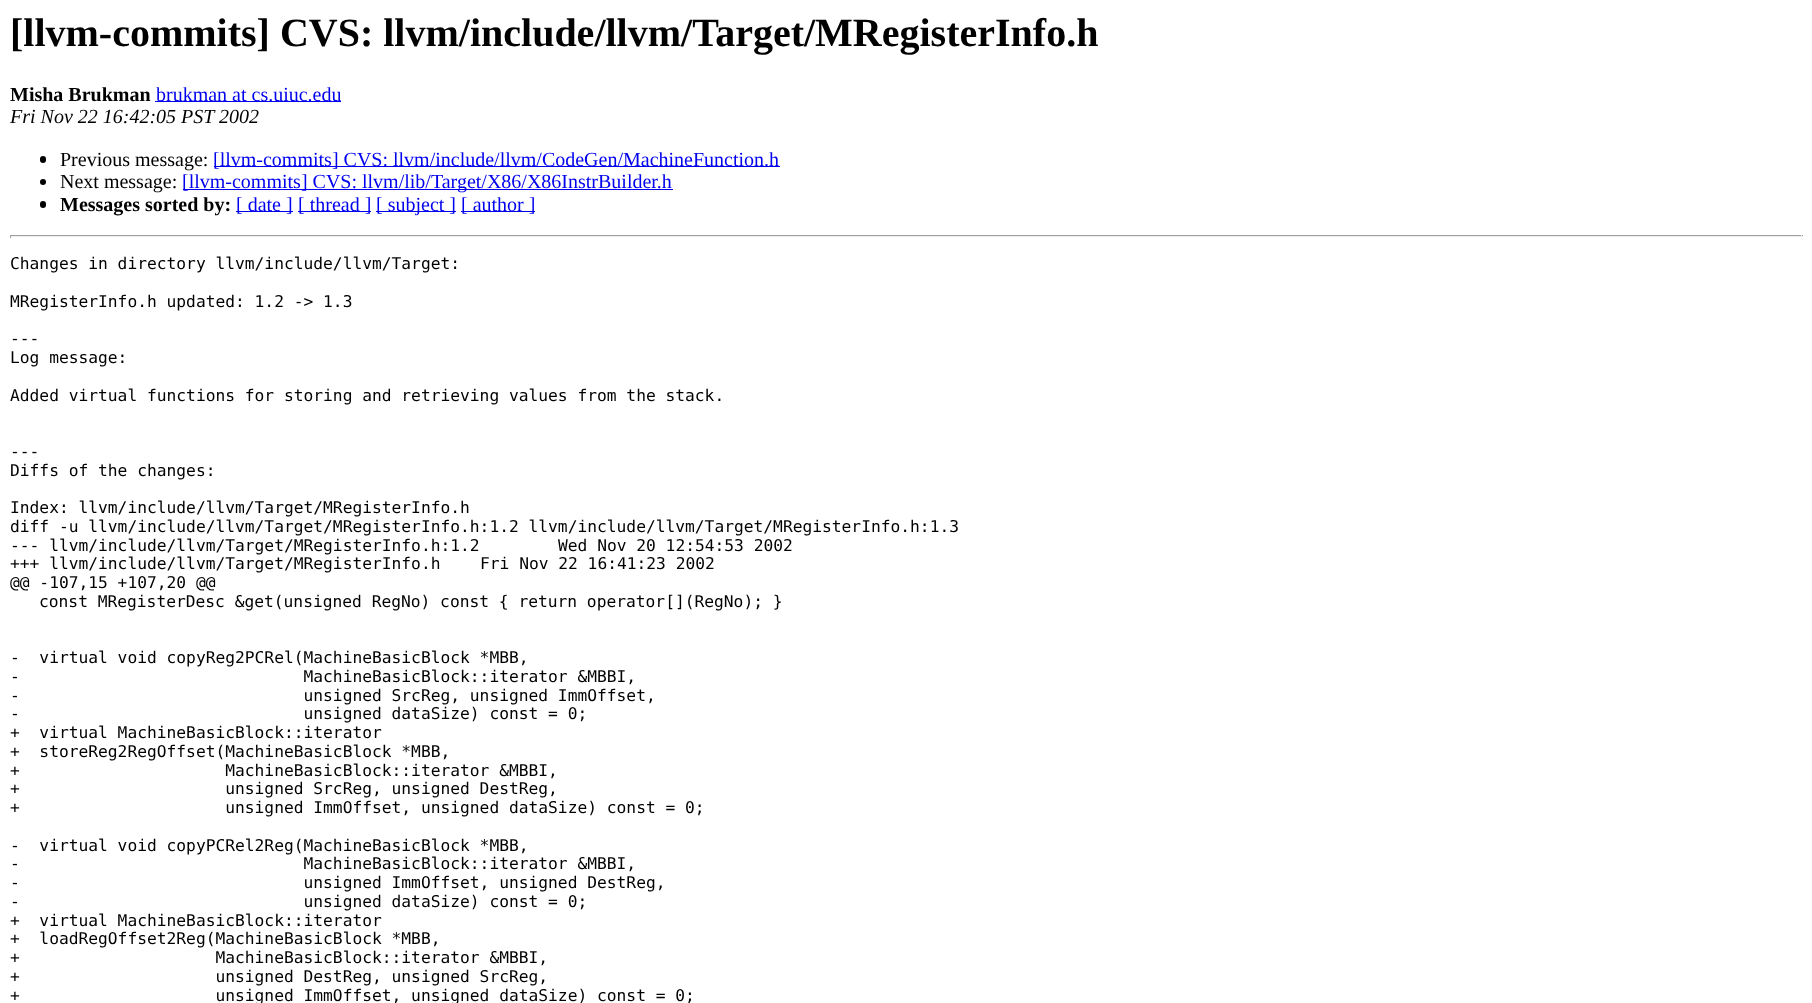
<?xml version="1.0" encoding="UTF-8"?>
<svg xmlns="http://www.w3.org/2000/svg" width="1812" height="1003">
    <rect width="100%" height="100%" fill="#FFFFFF"/>
    <text x="10" y="46" font-family="Liberation Serif" font-size="40" font-weight="700" fill="#000000">[llvm-commits] CVS: llvm/include/llvm/Target/MRegisterInfo.h</text>
    <text x="10" y="101" font-family="Liberation Serif" font-size="20" font-weight="700" fill="#000000">Misha Brukman</text>
    <rect x="155" y="101" width="186" height="1" fill="#0000EE"/>
    <text x="156" y="101" font-family="Liberation Serif" font-size="20" fill="#0000EE">brukman at cs.uiuc.edu</text>
    <text x="10" y="123" font-family="Liberation Serif" font-size="20" font-style="italic" fill="#000000">Fri Nov 22 16:42:05 PST 2002</text>
    <rect x="40" y="156" width="6" height="7" rx="3" fill="#000000"/>
    <text x="60" y="166" font-family="Liberation Serif" font-size="20" fill="#000000">Previous message:</text>
    <rect x="214" y="166" width="566" height="1" fill="#0000EE"/>
    <text x="213" y="166" font-family="Liberation Serif" font-size="20" fill="#0000EE">[llvm-commits] CVS: llvm/include/llvm/CodeGen/MachineFunction.h</text>
    <circle cx="43" cy="182" r="3" fill="#000000"/>
    <text x="60" y="188" font-family="Liberation Serif" font-size="20" fill="#000000">Next message:</text>
    <rect x="183" y="189" width="490" height="1" fill="#0000EE"/>
    <text x="182" y="188" font-family="Liberation Serif" font-size="20" fill="#0000EE">[llvm-commits] CVS: llvm/lib/Target/X86/X86InstrBuilder.h</text>
    <rect x="40" y="201" width="6" height="7" rx="3" fill="#000000"/>
    <text x="60" y="211" font-family="Liberation Serif" font-size="20" font-weight="700" fill="#000000">Messages sorted by:</text>
    <rect x="236" y="211" width="57" height="1" fill="#0000EE"/>
    <text x="236" y="211" font-family="Liberation Serif" font-size="20" fill="#0000EE">[ date ]</text>
    <rect x="298" y="211" width="73" height="1" fill="#0000EE"/>
    <text x="298" y="211" font-family="Liberation Serif" font-size="20" fill="#0000EE">[ thread ]</text>
    <rect x="376" y="211" width="80" height="1" fill="#0000EE"/>
    <text x="376" y="211" font-family="Liberation Serif" font-size="20" fill="#0000EE">[ subject ]</text>
    <rect x="461" y="211" width="74" height="1" fill="#0000EE"/>
    <text x="461" y="211" font-family="Liberation Serif" font-size="20" fill="#0000EE">[ author ]</text>
    <rect x="10" y="235" width="1793" height="1" fill="#9F9F9F"/>
    <rect x="1801" y="235" width="1" height="3" fill="#EEEEEE"/>
    <rect x="10" y="236" width="1793" height="1" fill="#EEEEEE"/>
    <rect x="10" y="235" width="1" height="3" fill="#9F9F9F"/>
    <text x="10" y="269" font-family="DejaVu Sans Mono" font-size="16.25" fill="#000000">Changes in directory llvm/include/llvm/Target:</text>
    <text x="10" y="307" font-family="DejaVu Sans Mono" font-size="16.25" fill="#000000">MRegisterInfo.h updated: 1.2 -&gt; 1.3</text>
    <text font-family="DejaVu Sans Mono" font-size="16.25" fill="#000000">
        <tspan x="10" y="344">---</tspan>
        <tspan x="10" y="363">Log message:</tspan>
    </text>
    <text x="10" y="401" font-family="DejaVu Sans Mono" font-size="16.25" fill="#000000">Added virtual functions for storing and retrieving values from the stack.</text>
    <text font-family="DejaVu Sans Mono" font-size="16.25" fill="#000000">
        <tspan x="10" y="457">---</tspan>
        <tspan x="10" y="476">Diffs of the changes:</tspan>
    </text>
    <text font-family="DejaVu Sans Mono" font-size="16.25" fill="#000000">
        <tspan x="10" y="513">Index: llvm/include/llvm/Target/MRegisterInfo.h</tspan>
        <tspan x="10" y="532">diff -u llvm/include/llvm/Target/MRegisterInfo.h:1.2 llvm/include/llvm/Target/MRegisterInfo.h:1.3</tspan>
        <tspan x="10" y="551">--- llvm/include/llvm/Target/MRegisterInfo.h:1.2</tspan>
    </text>
    <text x="558" y="551" font-family="DejaVu Sans Mono" font-size="16.25" fill="#000000">Wed Nov 20 12:54:53 2002</text>
    <text x="10" y="569" font-family="DejaVu Sans Mono" font-size="16.25" fill="#000000">+++ llvm/include/llvm/Target/MRegisterInfo.h</text>
    <text x="480" y="569" font-family="DejaVu Sans Mono" font-size="16.25" fill="#000000">Fri Nov 22 16:41:23 2002</text>
    <text x="10" y="588" font-family="DejaVu Sans Mono" font-size="16.25" fill="#000000">@@ -107,15 +107,20 @@</text>
    <text x="39" y="607" font-family="DejaVu Sans Mono" font-size="16.25" fill="#000000">const MRegisterDesc &amp;get(unsigned RegNo) const { return operator[](RegNo); }</text>
    <text font-family="DejaVu Sans Mono" font-size="16.25" fill="#000000" xml:space="preserve"><tspan x="10" y="663">-  virtual void copyReg2PCRel(MachineBasicBlock *MBB,</tspan><tspan x="10" y="682">-                             MachineBasicBlock::iterator &amp;MBBI,</tspan><tspan x="10" y="701">-                             unsigned SrcReg, unsigned ImmOffset,</tspan><tspan x="10" y="719">-                             unsigned dataSize) const = 0;</tspan><tspan x="10" y="738">+  virtual MachineBasicBlock::iterator</tspan><tspan x="10" y="757">+  storeReg2RegOffset(MachineBasicBlock *MBB,</tspan><tspan x="10" y="776">+                     MachineBasicBlock::iterator &amp;MBBI,</tspan><tspan x="10" y="794">+                     unsigned SrcReg, unsigned DestReg,</tspan><tspan x="10" y="813">+                     unsigned ImmOffset, unsigned dataSize) const = 0;</tspan></text>
    <text font-family="DejaVu Sans Mono" font-size="16.25" fill="#000000" xml:space="preserve"><tspan x="10" y="851">-  virtual void copyPCRel2Reg(MachineBasicBlock *MBB,</tspan><tspan x="10" y="869">-                             MachineBasicBlock::iterator &amp;MBBI,</tspan><tspan x="10" y="888">-                             unsigned ImmOffset, unsigned DestReg,</tspan><tspan x="10" y="907">-                             unsigned dataSize) const = 0;</tspan><tspan x="10" y="926">+  virtual MachineBasicBlock::iterator</tspan><tspan x="10" y="944">+  loadRegOffset2Reg(MachineBasicBlock *MBB,</tspan><tspan x="10" y="963">+                    MachineBasicBlock::iterator &amp;MBBI,</tspan><tspan x="10" y="982">+                    unsigned DestReg, unsigned SrcReg,</tspan><tspan x="10" y="1001">+                    unsigned ImmOffset, unsigned dataSize) const = 0;</tspan></text>
</svg>
